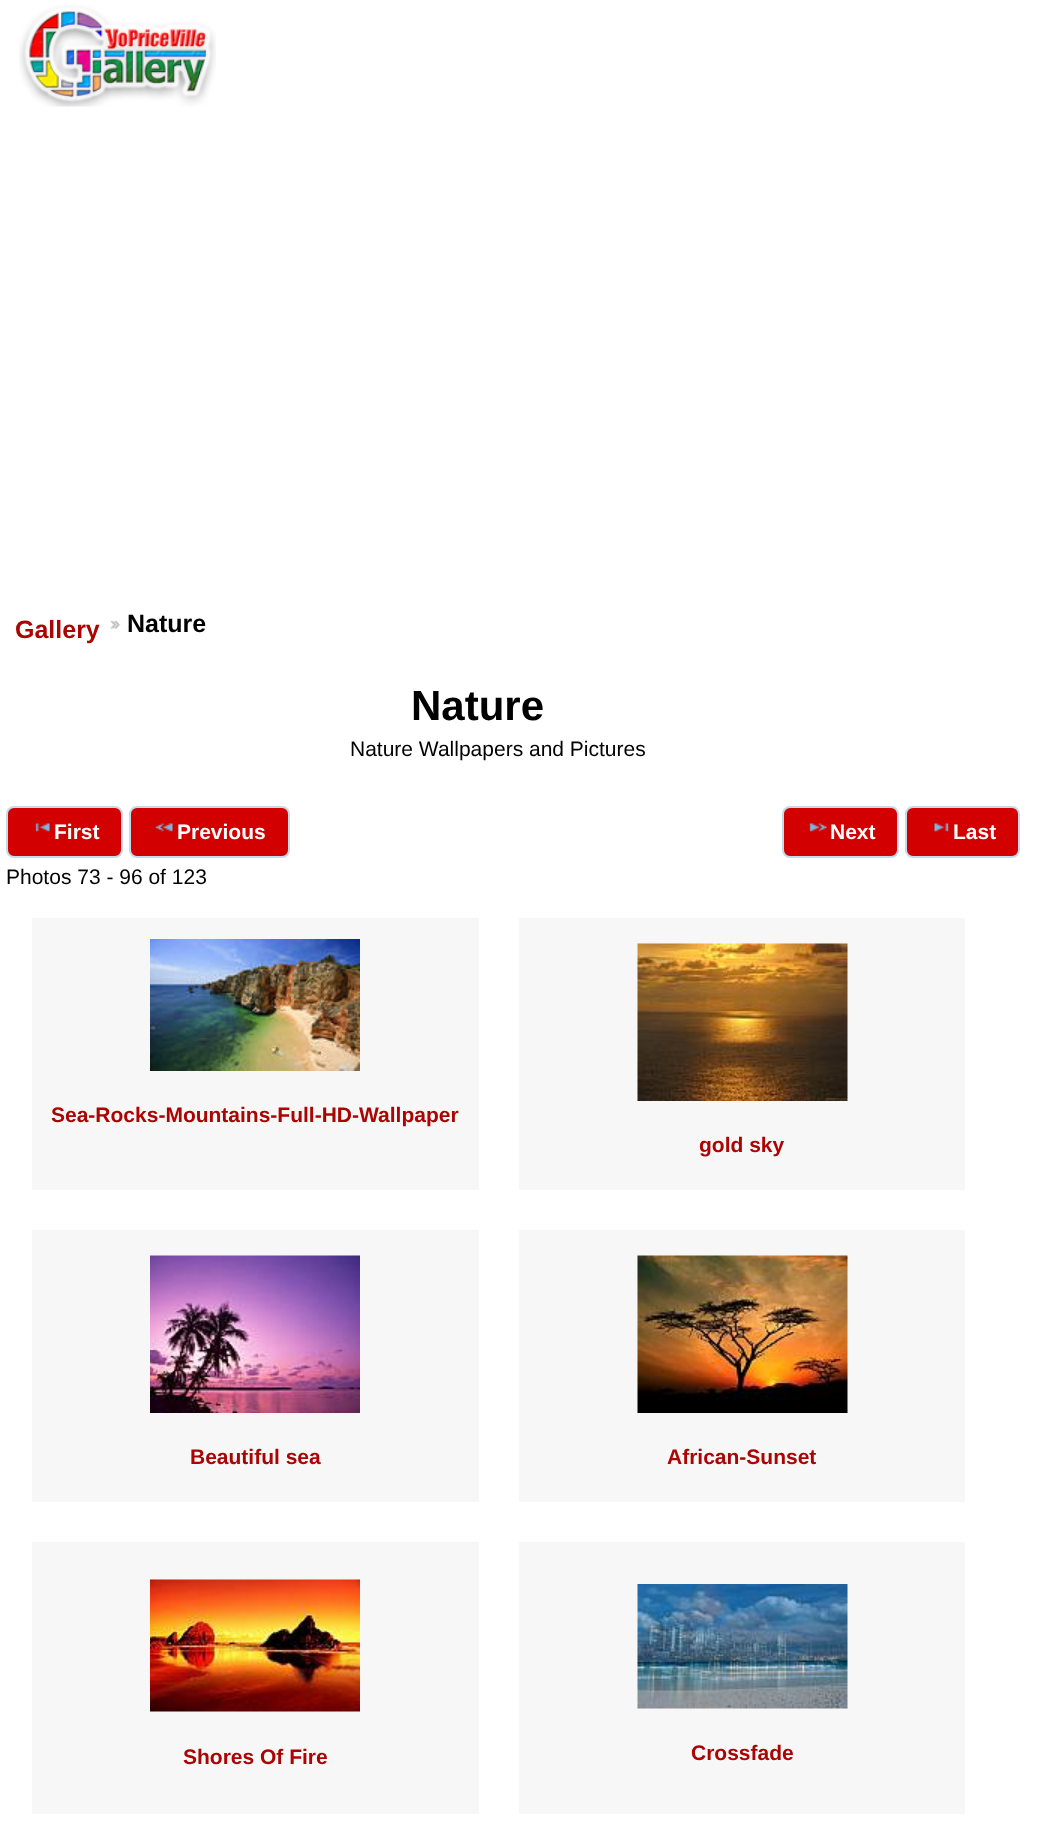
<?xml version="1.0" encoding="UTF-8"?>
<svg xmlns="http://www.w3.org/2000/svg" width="1056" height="1843">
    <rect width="100%" height="100%" fill="#FFFFFF"/>
    <image x="19" y="5" width="197" height="102" href="img_01.png"/>
    <text x="15" y="638" font-family="Liberation Sans" font-size="25" font-weight="700" fill="#AA0403">Gallery</text>
    <image x="110" y="620" width="11" height="9" href="img_02.png"/>
    <text x="127" y="632" font-family="Liberation Sans" font-size="25" font-weight="700" fill="#000000">Nature</text>
    <text x="411" y="720" font-family="Liberation Sans" font-size="42" font-weight="700" fill="#000000">Nature</text>
    <text x="350" y="756" font-family="Liberation Sans" font-size="21" fill="#000000">Nature Wallpapers and Pictures</text>
    <rect x="7" y="807" width="115" height="50" rx="7" fill="#D30000" stroke="#C5DBEC" stroke-width="2"/>
    <image x="35" y="823" width="15" height="9" href="img_03.png"/>
    <text x="54" y="839" font-family="Liberation Sans" font-size="21" font-weight="700" fill="#FFFFFF">First</text>
    <rect x="130" y="807" width="159" height="50" rx="7" fill="#D30000" stroke="#C5DBEC" stroke-width="2"/>
    <image x="155" y="823" width="18" height="9" href="img_04.png"/>
    <text x="177" y="839" font-family="Liberation Sans" font-size="21" font-weight="700" fill="#FFFFFF">Previous</text>
    <rect x="783" y="807" width="115" height="50" rx="7" fill="#D30000" stroke="#C5DBEC" stroke-width="2"/>
    <image x="809" y="823" width="18" height="9" href="img_05.png"/>
    <text x="830" y="839" font-family="Liberation Sans" font-size="21" font-weight="700" fill="#FFFFFF">Next</text>
    <rect x="906" y="807" width="113" height="50" rx="7" fill="#D30000" stroke="#C5DBEC" stroke-width="2"/>
    <image x="934" y="823" width="15" height="9" href="img_06.png"/>
    <text x="953" y="839" font-family="Liberation Sans" font-size="21" font-weight="700" fill="#FFFFFF">Last</text>
    <text x="6" y="884" font-family="Liberation Sans" font-size="21" fill="#000000">Photos 73 - 96 of 123</text>
    <rect x="32" y="918" width="447" height="272" fill="#F7F7F7"/>
    <image x="150" y="939" width="210" height="132" href="img_07.png"/>
    <text x="51" y="1122" font-family="Liberation Sans" font-size="21" font-weight="700" fill="#AA0403">Sea-Rocks-Mountains-Full-HD-Wallpaper</text>
    <rect x="519" y="918" width="446" height="272" fill="#F7F7F7"/>
    <image x="637" y="943" width="211" height="158" href="img_08.png"/>
    <text x="699" y="1152" font-family="Liberation Sans" font-size="21" font-weight="700" fill="#AA0403">gold sky</text>
    <rect x="32" y="1230" width="447" height="272" fill="#F7F7F7"/>
    <image x="150" y="1255" width="210" height="158" href="img_09.png"/>
    <text x="190" y="1464" font-family="Liberation Sans" font-size="21" font-weight="700" fill="#AA0403">Beautiful sea</text>
    <rect x="519" y="1230" width="446" height="272" fill="#F7F7F7"/>
    <image x="637" y="1255" width="211" height="158" href="img_10.png"/>
    <text x="667" y="1464" font-family="Liberation Sans" font-size="21" font-weight="700" fill="#AA0403">African-Sunset</text>
    <rect x="32" y="1542" width="447" height="272" fill="#F7F7F7"/>
    <image x="150" y="1579" width="210" height="133" href="img_11.png"/>
    <text x="183" y="1764" font-family="Liberation Sans" font-size="21" font-weight="700" fill="#AA0403">Shores Of Fire</text>
    <rect x="519" y="1542" width="446" height="272" fill="#F7F7F7"/>
    <image x="637" y="1584" width="211" height="125" href="img_12.png"/>
    <text x="691" y="1760" font-family="Liberation Sans" font-size="21" font-weight="700" fill="#AA0403">Crossfade</text>
</svg>
